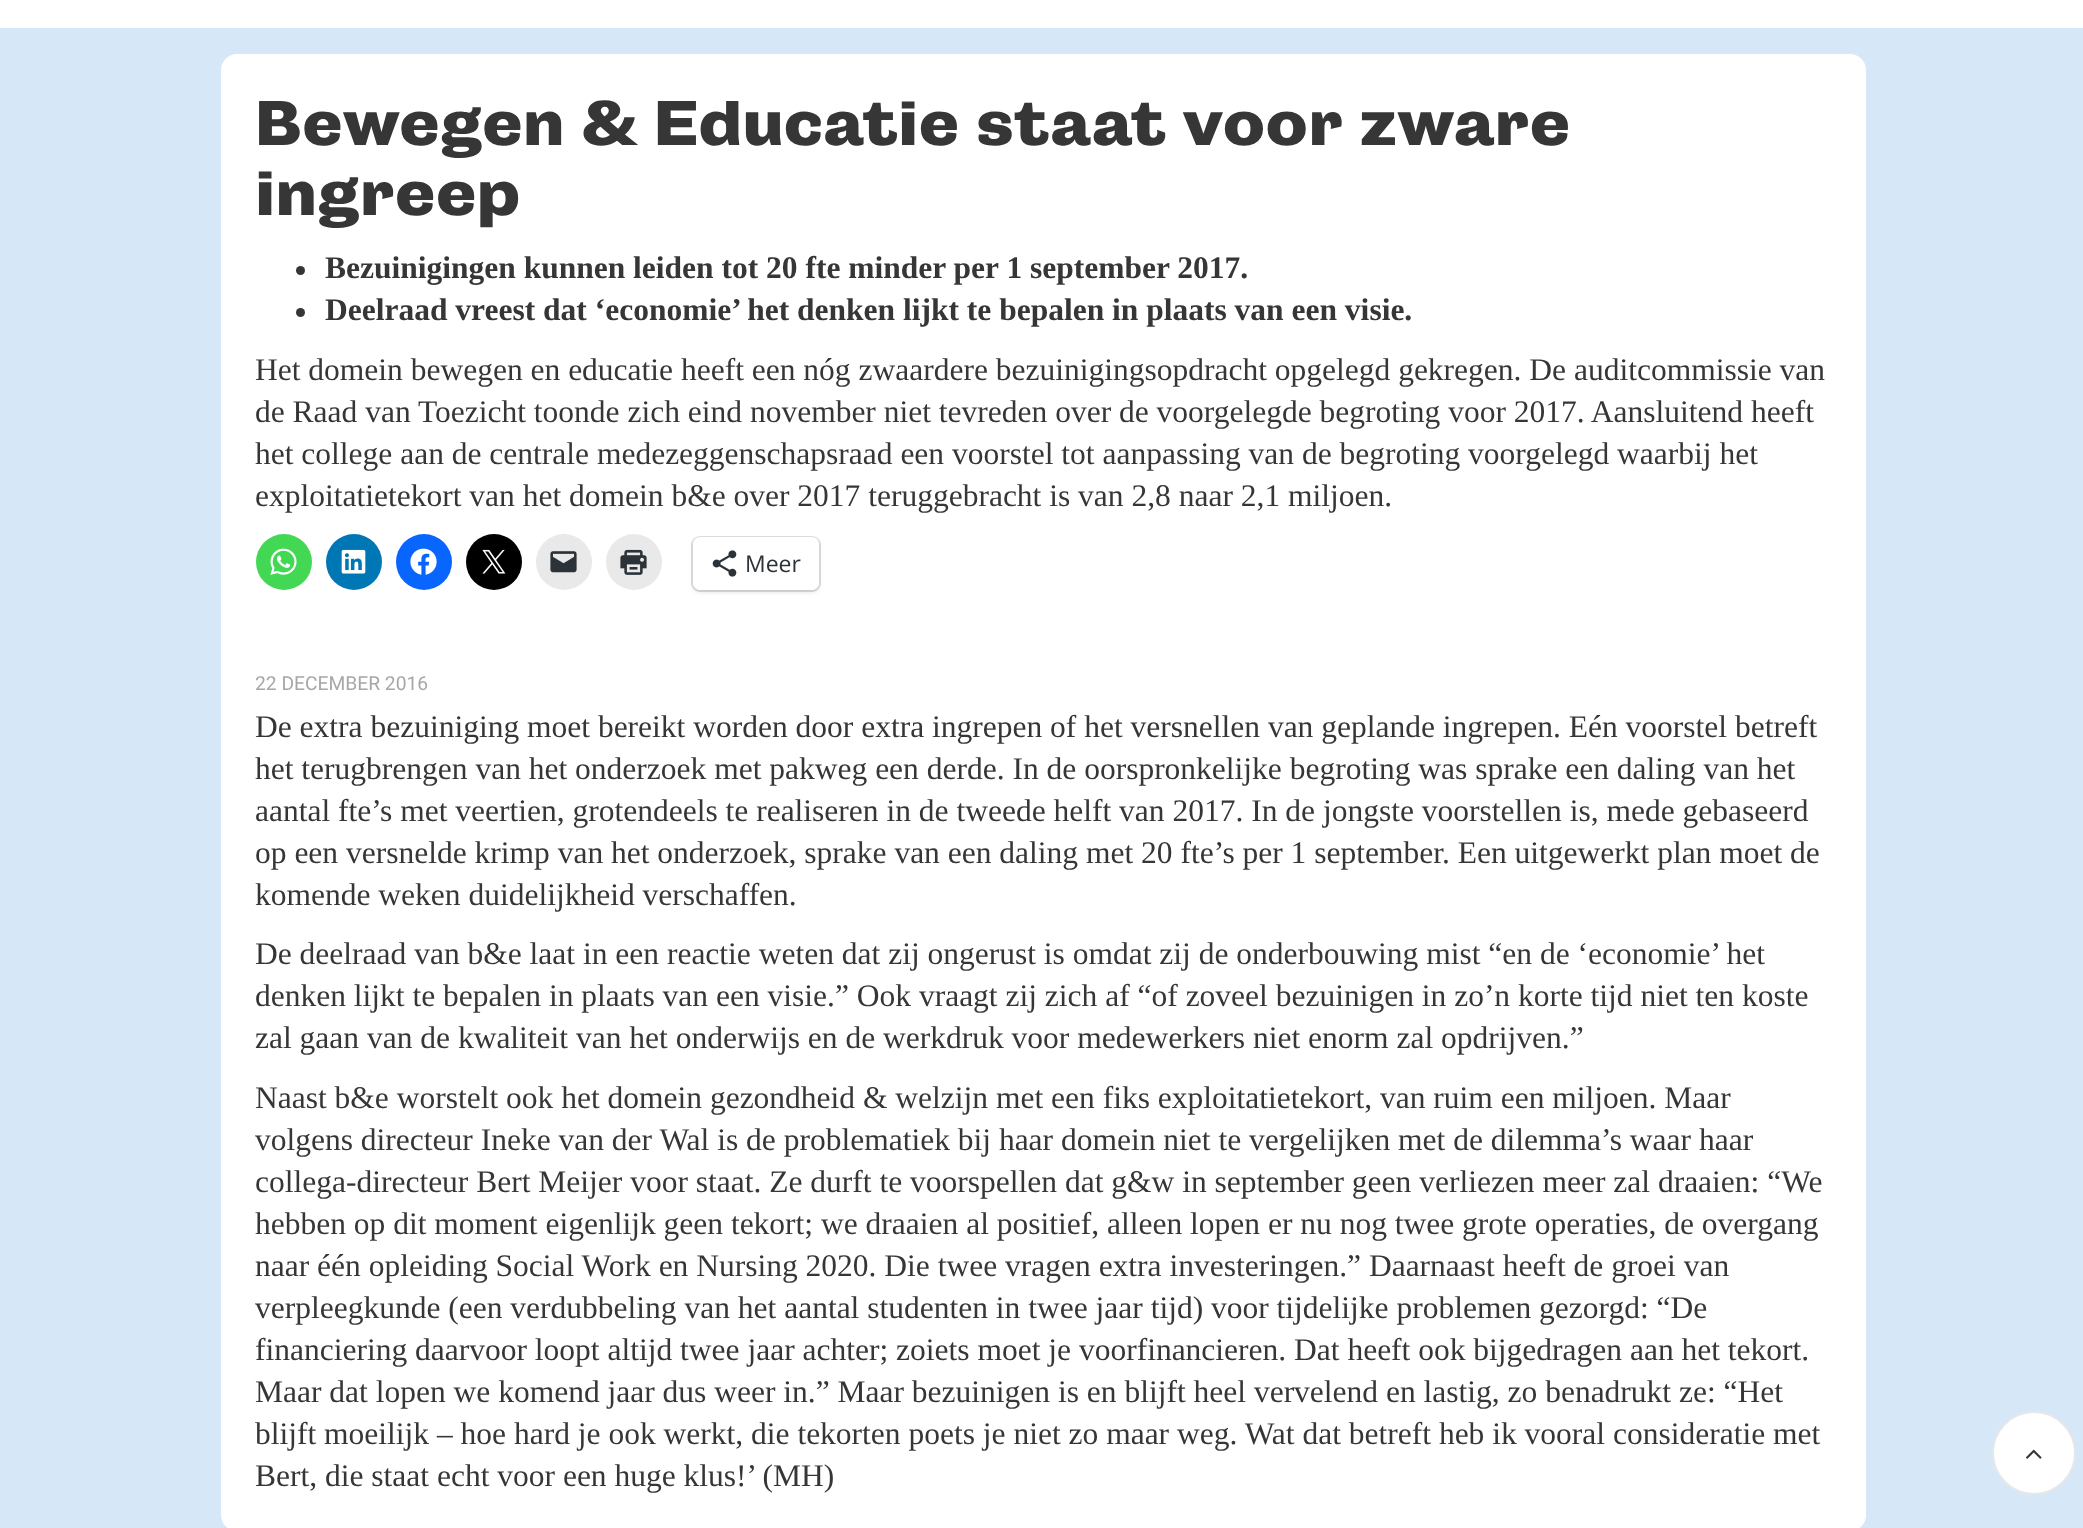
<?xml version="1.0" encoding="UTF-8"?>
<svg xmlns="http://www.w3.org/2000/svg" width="2083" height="1528">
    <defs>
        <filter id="blur1" x="-50%" y="-200%" width="200%" height="500%"><feGaussianBlur stdDeviation="2"/></filter>
    </defs>
    <rect width="100%" height="100%" fill="#D6E7F8"/>
    <rect x="0" y="0" width="2083" height="28" fill="#FFFFFF"/>
    <rect x="221" y="54" width="1645" height="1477" rx="16" fill="#FFFFFF"/>
    <text font-family="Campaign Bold" font-size="63" font-weight="700" fill="#363636">
        <tspan x="255" y="145">Bewegen &amp; Educatie staat voor zware</tspan>
        <tspan x="255" y="215">ingreep</tspan>
    </text>
    <circle cx="300.5" cy="270.5" r="4.5" fill="#363636"/>
    <text x="325" y="278" font-family="Liberation Serif" font-size="31.5" font-weight="700" fill="#363636">Bezuinigingen kunnen leiden tot 20 fte minder per 1 september 2017.</text>
    <circle cx="300.5" cy="312.5" r="4.5" fill="#363636"/>
    <text x="325" y="320" font-family="Liberation Serif" font-size="31.5" font-weight="700" fill="#363636">Deelraad vreest dat ‘economie’ het denken lijkt te bepalen in plaats van een visie.</text>
    <text font-family="Liberation Serif" font-size="31.5" fill="#363636">
        <tspan x="255" y="380">Het domein bewegen en educatie heeft een nóg zwaardere bezuinigingsopdracht opgelegd gekregen. De auditcommissie van</tspan>
        <tspan x="255" y="422">de Raad van Toezicht toonde zich eind november niet tevreden over de voorgelegde begroting voor 2017. Aansluitend heeft</tspan>
        <tspan x="255" y="464">het college aan de centrale medezeggenschapsraad een voorstel tot aanpassing van de begroting voorgelegd waarbij het</tspan>
        <tspan x="255" y="506">exploitatietekort van het domein b&amp;e over 2017 teruggebracht is van 2,8 naar 2,1 miljoen.</tspan>
    </text>
    <circle cx="284" cy="562" r="28" fill="#43D854"/>
    <image x="270" y="548" width="27" height="27" href="img_01.png"/>
    <circle cx="354" cy="562" r="28" fill="#0077B5"/>
    <image x="341" y="549" width="25" height="25" href="img_02.png"/>
    <circle cx="424" cy="562" r="28" fill="#0866FF"/>
    <image x="410" y="548" width="27" height="27" href="img_03.png"/>
    <circle cx="494" cy="562" r="28" fill="#000000"/>
    <image x="482" y="549" width="24" height="25" href="img_04.png"/>
    <circle cx="564" cy="562" r="28" fill="#E9E9E9"/>
    <image x="550" y="551" width="27" height="22" href="img_05.png"/>
    <circle cx="634" cy="562" r="28" fill="#E9E9E9"/>
    <image x="620" y="549" width="27" height="26" href="img_06.png"/>
    <rect x="692" y="537" width="128" height="54" rx="8" fill="none" stroke="#E0E0E0" stroke-width="2"/>
    <rect x="693" y="539" width="126" height="53" rx="7" fill="#000000" fill-opacity="0.12" filter="url(#blur1)"/>
    <rect x="693" y="537" width="126" height="53" rx="7" fill="#FFFFFF"/>
    <image x="712" y="550" width="25" height="27" href="img_07.png"/>
    <text x="745" y="572" font-family="Open Sans" font-size="23" fill="#2C3338">Meer</text>
    <text x="255" y="690" font-family="Roboto" font-size="19.25" fill="#A7A7A7">22 DECEMBER 2016</text>
    <text font-family="Liberation Serif" font-size="31.5" fill="#363636">
        <tspan x="255" y="737">De extra bezuiniging moet bereikt worden door extra ingrepen of het versnellen van geplande ingrepen. Eén voorstel betreft</tspan>
        <tspan x="255" y="779">het terugbrengen van het onderzoek met pakweg een derde. In de oorspronkelijke begroting was sprake een daling van het</tspan>
        <tspan x="255" y="821">aantal fte’s met veertien, grotendeels te realiseren in de tweede helft van 2017. In de jongste voorstellen is, mede gebaseerd</tspan>
        <tspan x="255" y="863">op een versnelde krimp van het onderzoek, sprake van een daling met 20 fte’s per 1 september. Een uitgewerkt plan moet de</tspan>
        <tspan x="255" y="905">komende weken duidelijkheid verschaffen.</tspan>
        <tspan x="255" y="964">De deelraad van b&amp;e laat in een reactie weten dat zij ongerust is omdat zij de onderbouwing mist “en de ‘economie’ het</tspan>
        <tspan x="255" y="1006">denken lijkt te bepalen in plaats van een visie.” Ook vraagt zij zich af “of zoveel bezuinigen in zo’n korte tijd niet ten koste</tspan>
        <tspan x="255" y="1048">zal gaan van de kwaliteit van het onderwijs en de werkdruk voor medewerkers niet enorm zal opdrijven.”</tspan>
        <tspan x="255" y="1108">Naast b&amp;e worstelt ook het domein gezondheid &amp; welzijn met een fiks exploitatietekort, van ruim een miljoen. Maar</tspan>
        <tspan x="255" y="1150">volgens directeur Ineke van der Wal is de problematiek bij haar domein niet te vergelijken met de dilemma’s waar haar</tspan>
        <tspan x="255" y="1192">collega-directeur Bert Meijer voor staat. Ze durft te voorspellen dat g&amp;w in september geen verliezen meer zal draaien: “We</tspan>
        <tspan x="255" y="1234">hebben op dit moment eigenlijk geen tekort; we draaien al positief, alleen lopen er nu nog twee grote operaties, de overgang</tspan>
        <tspan x="255" y="1276">naar één opleiding Social Work en Nursing 2020. Die twee vragen extra investeringen.” Daarnaast heeft de groei van</tspan>
        <tspan x="255" y="1318">verpleegkunde (een verdubbeling van het aantal studenten in twee jaar tijd) voor tijdelijke problemen gezorgd: “De</tspan>
        <tspan x="255" y="1360">financiering daarvoor loopt altijd twee jaar achter; zoiets moet je voorfinancieren. Dat heeft ook bijgedragen aan het tekort.</tspan>
        <tspan x="255" y="1402">Maar dat lopen we komend jaar dus weer in.” Maar bezuinigen is en blijft heel vervelend en lastig, zo benadrukt ze: “Het</tspan>
        <tspan x="255" y="1444">blijft moeilijk – hoe hard je ook werkt, die tekorten poets je niet zo maar weg. Wat dat betreft heb ik vooral consideratie met</tspan>
        <tspan x="255" y="1486">Bert, die staat echt voor een huge klus!’ (MH)</tspan>
    </text>
    <circle cx="2034" cy="1453" r="41" fill="#FFFFFF" stroke="#E7E7E7" stroke-width="2"/>
    <image x="2026" y="1449" width="16" height="10" href="img_08.png"/>
</svg>
